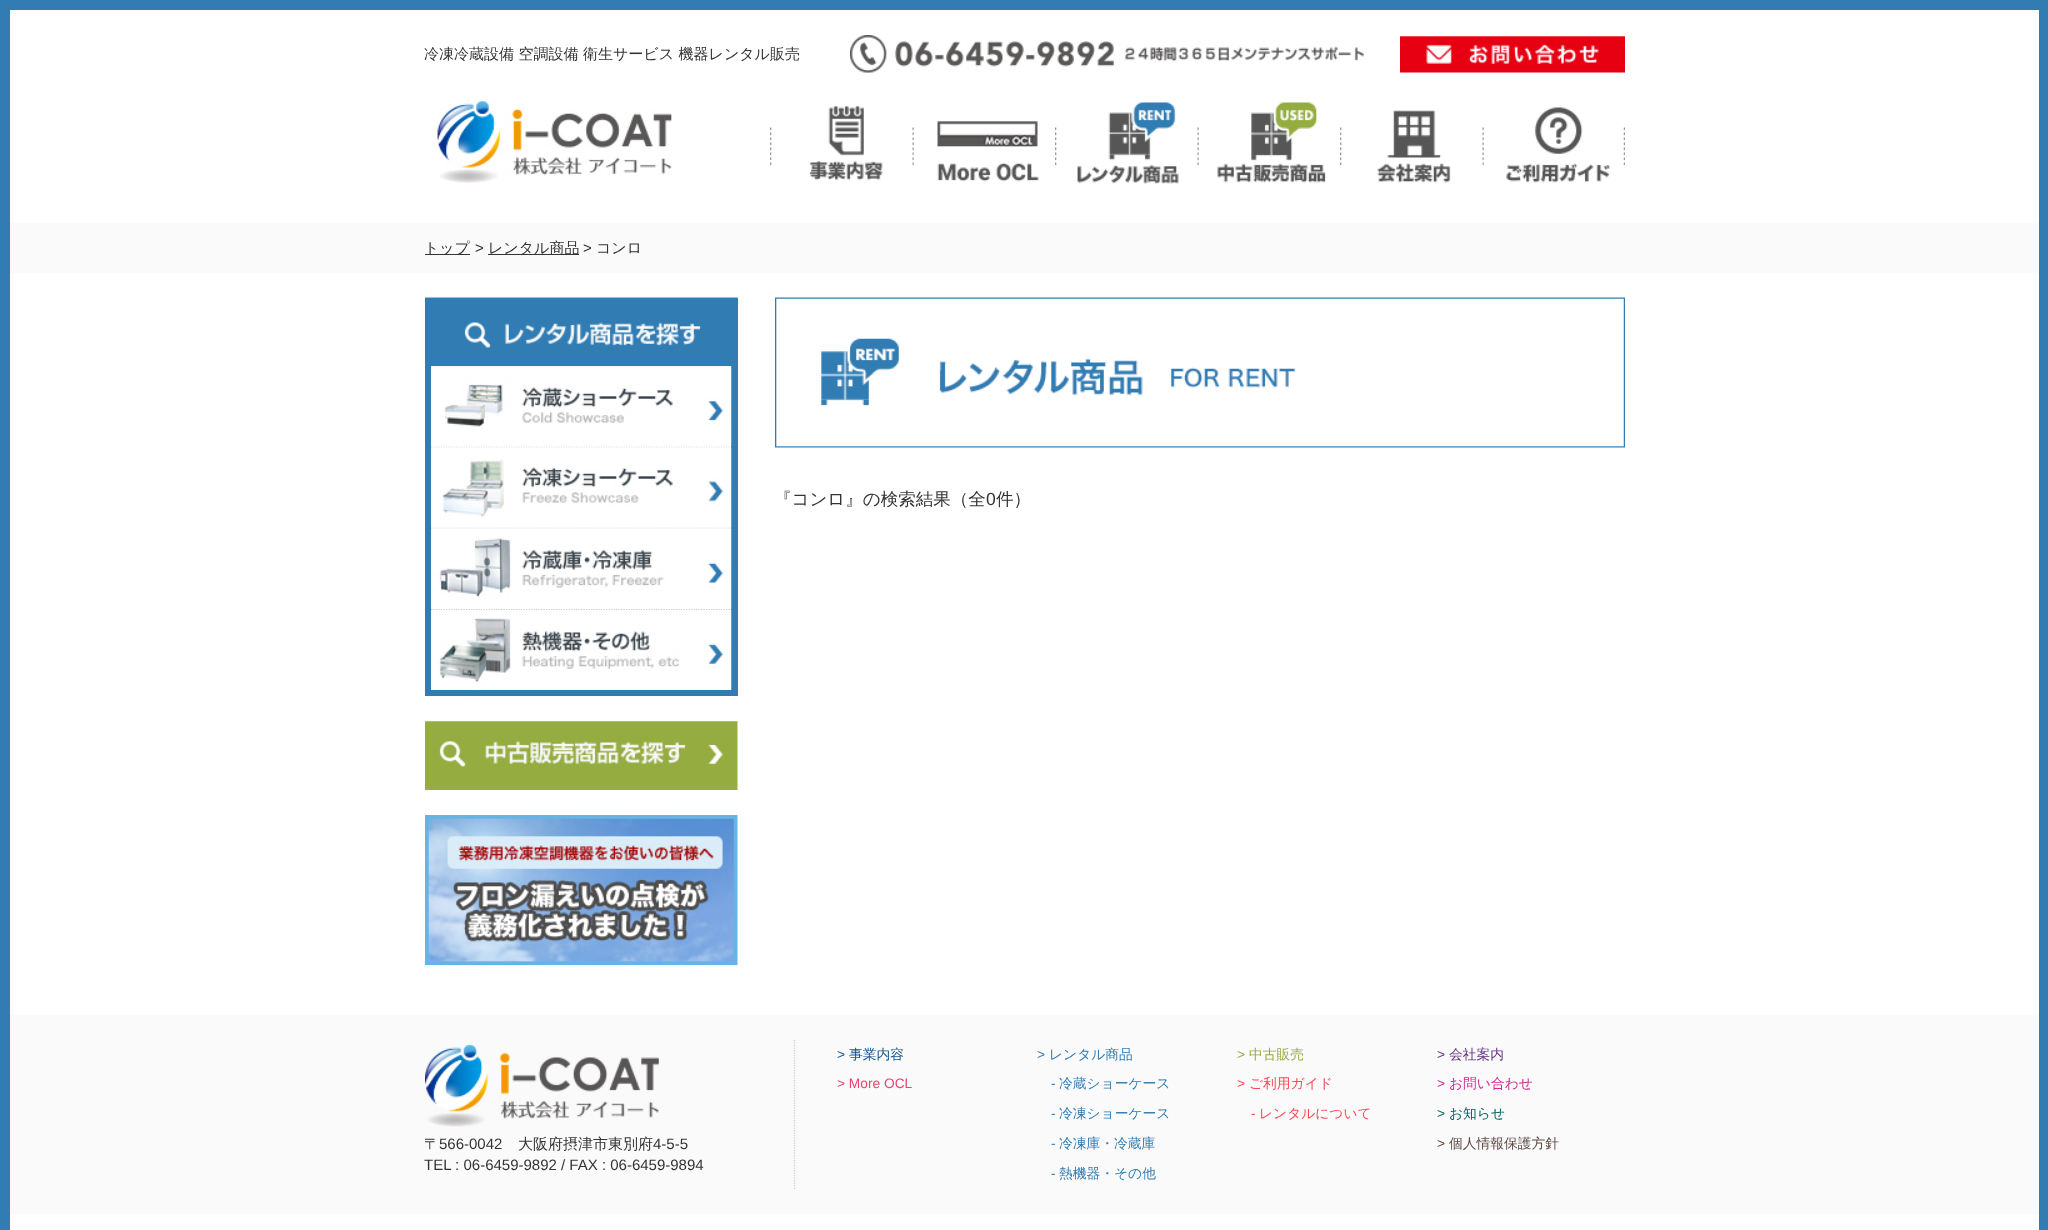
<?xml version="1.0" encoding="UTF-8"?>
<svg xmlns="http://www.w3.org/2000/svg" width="2048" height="1230">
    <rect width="100%" height="100%" fill="#FFFFFF"/>
    <rect x="5" y="5" width="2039" height="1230" fill="none" stroke="#307CB3" stroke-width="10"/>
    <text x="424" y="59" font-family="WenQuanYi Zen Hei" font-size="15" font-weight="500" fill="#333333">冷凍冷蔵設備 空調設備 衛生サービス 機器レンタル販売</text>
    <image x="850" y="35" width="514" height="38" href="img_01.png"/>
    <image x="1400" y="36" width="225" height="37" href="img_02.png"/>
    <image x="437" y="101" width="235" height="82" href="img_03.png"/>
    <image x="770" y="106" width="113" height="75" href="img_04.png"/>
    <image x="912" y="121" width="127" height="61" href="img_05.png"/>
    <image x="1055" y="102" width="124" height="82" href="img_06.png"/>
    <image x="1197" y="102" width="129" height="81" href="img_07.png"/>
    <image x="1340" y="110" width="111" height="73" href="img_08.png"/>
    <image x="1482" y="107" width="143" height="76" href="img_09.png"/>
    <rect x="10" y="223" width="2029" height="50" fill="#FAFAFA"/>
    <rect x="425" y="254" width="45" height="1" fill="#333333"/>
    <text x="424" y="253" font-family="WenQuanYi Zen Hei" font-size="15" font-weight="500" fill="#333333">トップ</text>
    <text x="475" y="253" font-family="Liberation Sans" font-size="15" fill="#333333">&gt;</text>
    <rect x="488" y="254" width="91" height="1" fill="#333333"/>
    <text x="488" y="253" font-family="WenQuanYi Zen Hei" font-size="15" font-weight="500" fill="#333333">レンタル商品</text>
    <text x="583" y="253" font-family="Liberation Sans" font-size="15" fill="#333333">&gt;</text>
    <text x="596" y="253" font-family="WenQuanYi Zen Hei" font-size="15" font-weight="500" fill="#333333">コンロ</text>
    <rect x="425" y="298" width="313" height="398" fill="#307CB3"/>
    <rect x="431" y="366" width="300" height="324" fill="#FFFFFF"/>
    <image x="425" y="297" width="313" height="70" href="img_10.png"/>
    <path d="M 431 447 H 731" fill="none" stroke="#CCCCCC" stroke-width="1.2" stroke-dasharray="1.25 1.25"/>
    <image x="431" y="366" width="301" height="81" href="img_11.png"/>
    <path d="M 431 528 H 731" fill="none" stroke="#CCCCCC" stroke-width="1.2" stroke-dasharray="1.25 1.25"/>
    <image x="431" y="447" width="301" height="81" href="img_12.png"/>
    <path d="M 431 609.5 H 731" fill="none" stroke="#CCCCCC" stroke-width="1.2" stroke-dasharray="1.25 1.25"/>
    <image x="431" y="528" width="301" height="81" href="img_13.png"/>
    <image x="436" y="610" width="296" height="80" href="img_14.png"/>
    <image x="425" y="721" width="313" height="69" href="img_15.png"/>
    <image x="425" y="815" width="313" height="150" href="img_16.png"/>
    <image x="775" y="297" width="850" height="151" href="img_17.png"/>
    <text x="774" y="505" font-family="WenQuanYi Zen Hei" font-size="17.5" font-weight="500" fill="#333333">『コンロ』の検索結果（全</text>
    <text x="986" y="505" font-family="Liberation Sans" font-size="17.5" fill="#333333">0</text>
    <text x="996" y="505" font-family="WenQuanYi Zen Hei" font-size="17.5" font-weight="500" fill="#333333">件）</text>
    <rect x="10" y="1015" width="2029" height="199" fill="#FAFAFA"/>
    <path d="M 794.5 1040 V 1189" fill="none" stroke="#CCCCCC" stroke-width="1.2" stroke-dasharray="1.25 1.25"/>
    <image x="425" y="1044" width="234" height="83" href="img_18.png"/>
    <text x="424" y="1149" font-family="WenQuanYi Zen Hei" font-size="15" font-weight="500" fill="#333333">〒</text>
    <text x="439" y="1149" font-family="Liberation Sans" font-size="15" fill="#333333">566-0042</text>
    <text x="518" y="1149" font-family="WenQuanYi Zen Hei" font-size="15" font-weight="500" fill="#333333">大阪府摂津市東別府</text>
    <text x="653" y="1149" font-family="Liberation Sans" font-size="15" fill="#333333">4-5-5</text>
    <text x="424" y="1170" font-family="Liberation Sans" font-size="15" fill="#333333">TEL : 06-6459-9892 / FAX : 06-6459-9894</text>
    <text x="837" y="1059" font-family="Liberation Sans" font-size="13.75" fill="#13528C">&gt;</text>
    <text x="849" y="1059" font-family="WenQuanYi Zen Hei" font-size="13.75" font-weight="500" fill="#13528C">事業内容</text>
    <text x="837" y="1088" font-family="Liberation Sans" font-size="13.75" fill="#E84572">&gt; More OCL</text>
    <text x="1037" y="1059" font-family="Liberation Sans" font-size="13.75" fill="#307CB3">&gt;</text>
    <text x="1049" y="1059" font-family="WenQuanYi Zen Hei" font-size="13.75" font-weight="500" fill="#307CB3">レンタル商品</text>
    <text x="1051" y="1088" font-family="Liberation Sans" font-size="13.75" fill="#307CB3">-</text>
    <text x="1059" y="1088" font-family="WenQuanYi Zen Hei" font-size="13.75" font-weight="500" fill="#307CB3">冷蔵ショーケース</text>
    <text x="1051" y="1118" font-family="Liberation Sans" font-size="13.75" fill="#307CB3">-</text>
    <text x="1059" y="1118" font-family="WenQuanYi Zen Hei" font-size="13.75" font-weight="500" fill="#307CB3">冷凍ショーケース</text>
    <text x="1051" y="1148" font-family="Liberation Sans" font-size="13.75" fill="#307CB3">-</text>
    <text x="1059" y="1148" font-family="WenQuanYi Zen Hei" font-size="13.75" font-weight="500" fill="#307CB3">冷凍庫・冷蔵庫</text>
    <text x="1051" y="1178" font-family="Liberation Sans" font-size="13.75" fill="#307CB3">-</text>
    <text x="1059" y="1178" font-family="WenQuanYi Zen Hei" font-size="13.75" font-weight="500" fill="#307CB3">熱機器・その他</text>
    <text x="1237" y="1059" font-family="Liberation Sans" font-size="13.75" fill="#95AC40">&gt;</text>
    <text x="1249" y="1059" font-family="WenQuanYi Zen Hei" font-size="13.75" font-weight="500" fill="#95AC40">中古販売</text>
    <text x="1237" y="1088" font-family="Liberation Sans" font-size="13.75" fill="#FF4958">&gt;</text>
    <text x="1249" y="1088" font-family="WenQuanYi Zen Hei" font-size="13.75" font-weight="500" fill="#FF4958">ご利用ガイド</text>
    <text x="1251" y="1118" font-family="Liberation Sans" font-size="13.75" fill="#FF4958">-</text>
    <text x="1259" y="1118" font-family="WenQuanYi Zen Hei" font-size="13.75" font-weight="500" fill="#FF4958">レンタルについて</text>
    <text x="1437" y="1059" font-family="Liberation Sans" font-size="13.75" fill="#623181">&gt;</text>
    <text x="1449" y="1059" font-family="WenQuanYi Zen Hei" font-size="13.75" font-weight="500" fill="#623181">会社案内</text>
    <text x="1437" y="1088" font-family="Liberation Sans" font-size="13.75" fill="#D32990">&gt;</text>
    <text x="1449" y="1088" font-family="WenQuanYi Zen Hei" font-size="13.75" font-weight="500" fill="#D32990">お問い合わせ</text>
    <text x="1437" y="1118" font-family="Liberation Sans" font-size="13.75" fill="#006765">&gt;</text>
    <text x="1449" y="1118" font-family="WenQuanYi Zen Hei" font-size="13.75" font-weight="500" fill="#006765">お知らせ</text>
    <text x="1437" y="1148" font-family="Liberation Sans" font-size="13.75" fill="#5D4842">&gt;</text>
    <text x="1449" y="1148" font-family="WenQuanYi Zen Hei" font-size="13.75" font-weight="500" fill="#5D4842">個人情報保護方針</text>
</svg>
